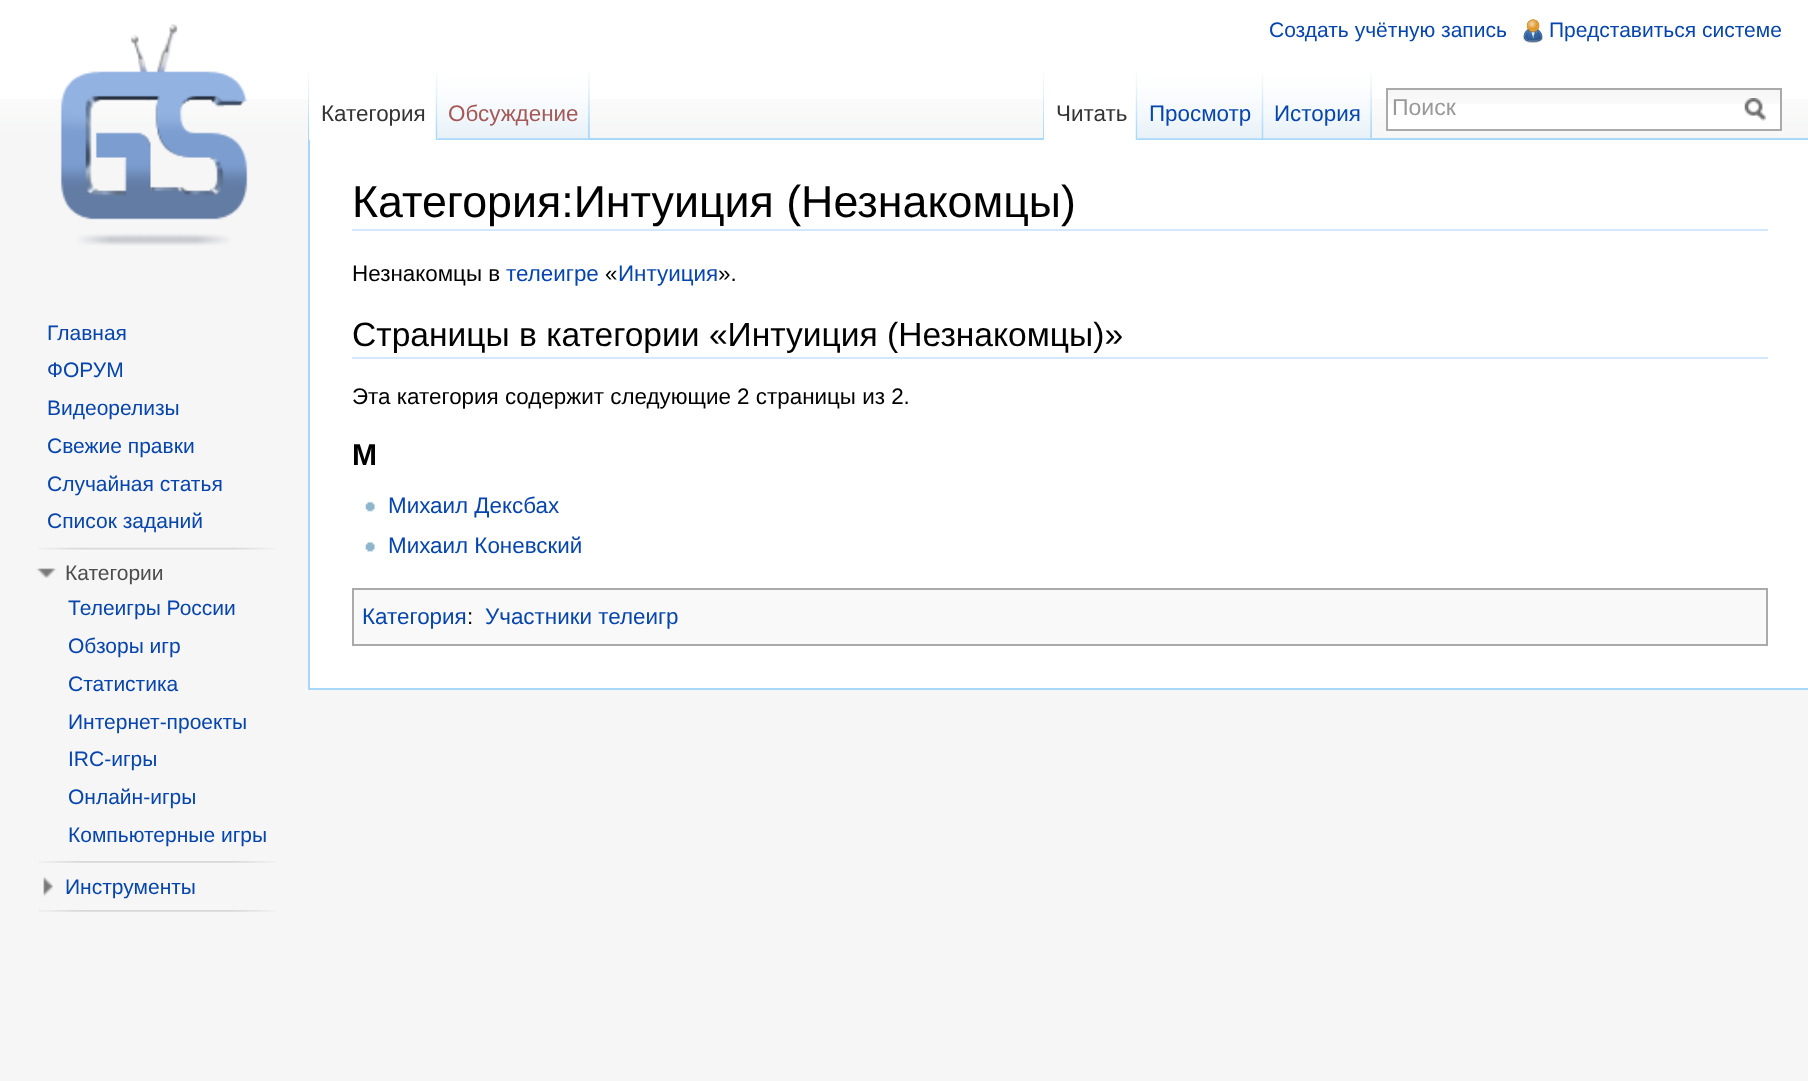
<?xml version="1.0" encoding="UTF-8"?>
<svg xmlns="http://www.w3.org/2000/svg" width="1808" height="1081">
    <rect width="100%" height="100%" fill="#F6F6F6"/>
    <rect x="0" y="0" width="1808" height="99" fill="#FFFFFF"/>
    <image x="0" y="99" width="1808" height="41" href="img_01.png"/>
    <text x="1269" y="37" font-family="Liberation Sans" font-size="21" fill="#0645AD">Создать учётную запись</text>
    <image x="1523" y="19" width="20" height="24" href="img_02.png"/>
    <text x="1549" y="37" font-family="Liberation Sans" font-size="21" fill="#0645AD">Представиться системе</text>
    <image x="308" y="70" width="1" height="68" href="img_03.png"/>
    <image x="589" y="70" width="1" height="68" href="img_04.png"/>
    <rect x="308" y="688" width="1500" height="2" fill="#A7D7F9"/>
    <rect x="308" y="138" width="2" height="552" fill="#A7D7F9"/>
    <rect x="309" y="99" width="129" height="41" fill="#FFFFFF"/>
    <image x="435" y="71" width="3" height="69" href="img_05.png"/>
    <text x="321" y="121" font-family="Liberation Sans" font-size="22.4" fill="#333333">Категория</text>
    <rect x="589" y="138" width="1219" height="2" fill="#A7D7F9"/>
    <image x="437" y="70" width="153" height="70" href="img_06.png"/>
    <image x="588" y="71" width="2" height="69" href="img_07.png"/>
    <text x="448" y="121" font-family="Liberation Sans" font-size="22.4" fill="#A55858">Обсуждение</text>
    <image x="1043" y="70" width="1" height="68" href="img_03.png"/>
    <rect x="1044" y="99" width="94" height="41" fill="#FFFFFF"/>
    <image x="1135" y="71" width="3" height="69" href="img_05.png"/>
    <text x="1056" y="121" font-family="Liberation Sans" font-size="22.4" fill="#333333">Читать</text>
    <image x="1137" y="70" width="127" height="70" href="img_08.png"/>
    <image x="1261" y="71" width="3" height="69" href="img_09.png"/>
    <text x="1149" y="121" font-family="Liberation Sans" font-size="22.4" fill="#0645AD">Просмотр</text>
    <image x="1263" y="70" width="109" height="70" href="img_10.png"/>
    <image x="1370" y="71" width="2" height="68" href="img_11.png"/>
    <text x="1274" y="121" font-family="Liberation Sans" font-size="22.4" fill="#0645AD">История</text>
    <rect x="1388" y="104" width="392" height="25" fill="#FFFFFF"/>
    <image x="1388" y="90" width="392" height="14" href="img_12.png"/>
    <rect x="1387" y="89" width="394" height="41" fill="none" stroke="#AAAAAA" stroke-width="2"/>
    <text x="1392" y="115" font-family="Liberation Sans" font-size="23" fill="#999999">Поиск</text>
    <image x="1744" y="98" width="22" height="23" href="img_13.png"/>
    <image x="60" y="24" width="188" height="222" href="img_14.png"/>
    <text font-family="Liberation Sans" font-size="21" fill="#0645AD">
        <tspan x="47" y="340">Главная</tspan>
        <tspan x="47" y="377">ФОРУМ</tspan>
        <tspan x="47" y="415">Видеорелизы</tspan>
        <tspan x="47" y="453">Свежие правки</tspan>
        <tspan x="47" y="491">Случайная статья</tspan>
        <tspan x="47" y="528">Список заданий</tspan>
    </text>
    <image x="38" y="547" width="238" height="3" href="img_15.png"/>
    <image x="36" y="568" width="21" height="10" href="img_16.png"/>
    <text x="65" y="580" font-family="Liberation Sans" font-size="21" fill="#4D4D4D">Категории</text>
    <text font-family="Liberation Sans" font-size="21" fill="#0645AD">
        <tspan x="68" y="615">Телеигры России</tspan>
        <tspan x="68" y="653">Обзоры игр</tspan>
        <tspan x="68" y="691">Статистика</tspan>
        <tspan x="68" y="729">Интернет-проекты</tspan>
        <tspan x="68" y="766">IRC-игры</tspan>
        <tspan x="68" y="804">Онлайн-игры</tspan>
        <tspan x="68" y="842">Компьютерные игры</tspan>
    </text>
    <image x="38" y="861" width="238" height="2" href="img_17.png"/>
    <image x="43" y="876" width="10" height="21" href="img_18.png"/>
    <text x="65" y="894" font-family="Liberation Sans" font-size="21" fill="#0645AD">Инструменты</text>
    <image x="38" y="910" width="238" height="2" href="img_17.png"/>
    <rect x="310" y="140" width="1498" height="548" fill="#FFFFFF"/>
    <rect x="352" y="229" width="1416" height="2" fill="#D3E8FF"/>
    <text x="352" y="217" font-family="Liberation Sans" font-size="44.75" fill="#000000">Категория:Интуиция (Незнакомцы)</text>
    <text x="352" y="281" font-family="Liberation Sans" font-size="22.4" fill="#000000">Незнакомцы в</text>
    <text x="506" y="281" font-family="Liberation Sans" font-size="22.4" fill="#0645AD">телеигре</text>
    <text x="605" y="281" font-family="Liberation Sans" font-size="22.4" fill="#000000">«</text>
    <text x="618" y="281" font-family="Liberation Sans" font-size="22.4" fill="#0645AD">Интуиция</text>
    <text x="718" y="281" font-family="Liberation Sans" font-size="22.4" fill="#000000">».</text>
    <rect x="352" y="357" width="1416" height="2" fill="#D3E8FF"/>
    <text x="352" y="346" font-family="Liberation Sans" font-size="33.6" fill="#000000">Страницы в категории «Интуиция (Незнакомцы)»</text>
    <text x="352" y="404" font-family="Liberation Sans" font-size="22.4" fill="#000000">Эта категория содержит следующие 2 страницы из 2.</text>
    <text x="352" y="465" font-family="Liberation Sans" font-size="30" font-weight="700" fill="#000000">М</text>
    <image x="365" y="501" width="10" height="11" href="img_19.png"/>
    <text x="388" y="513" font-family="Liberation Sans" font-size="22.4" fill="#0645AD">Михаил Дексбах</text>
    <image x="365" y="542" width="10" height="10" href="img_20.png"/>
    <text x="388" y="553" font-family="Liberation Sans" font-size="22.4" fill="#0645AD">Михаил Коневский</text>
    <rect x="353" y="589" width="1414" height="56" fill="#F9F9F9" stroke="#AAAAAA" stroke-width="2"/>
    <text x="362" y="624" font-family="Liberation Sans" font-size="22.4" fill="#0645AD">Категория</text>
    <text x="467" y="624" font-family="Liberation Sans" font-size="22.4" fill="#000000">:</text>
    <text x="485" y="624" font-family="Liberation Sans" font-size="22.4" fill="#0645AD">Участники телеигр</text>
</svg>
